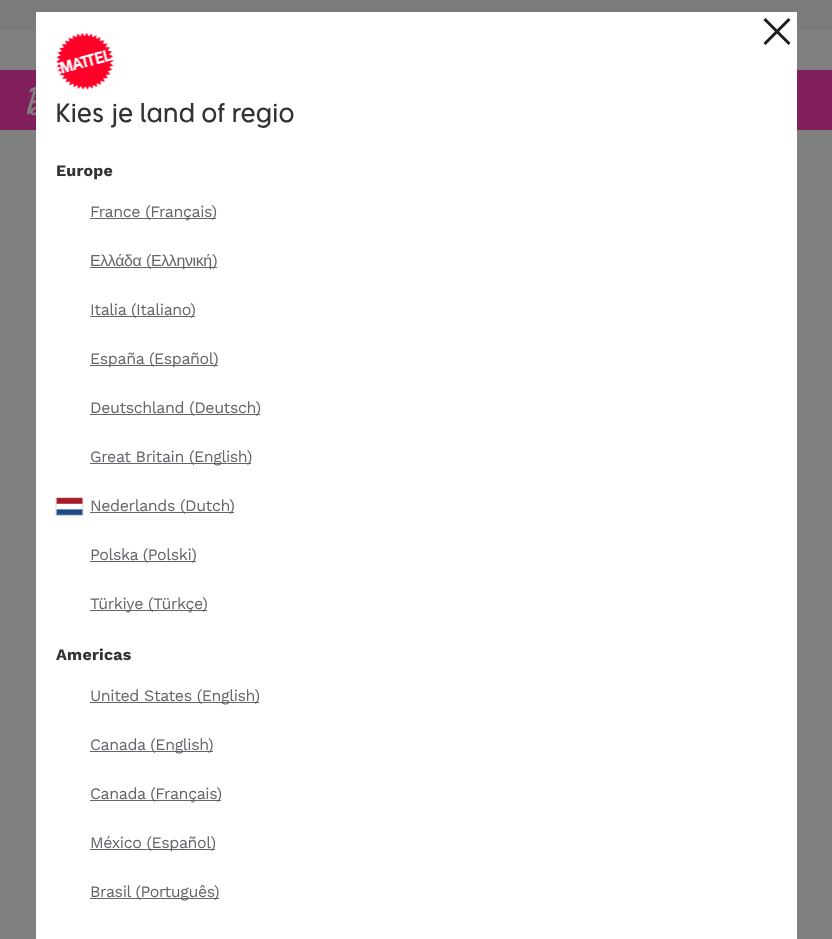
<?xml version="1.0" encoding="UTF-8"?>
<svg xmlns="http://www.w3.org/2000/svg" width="832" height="939">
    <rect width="100%" height="100%" fill="#808080"/>
    <rect x="0" y="0" width="832" height="30" fill="#7B7B7B"/>
    <rect x="0" y="70" width="832" height="60" fill="#801F5B"/>
    <image x="27" y="86" width="9" height="30" href="img_01.png"/>
    <rect x="36" y="12" width="761" height="927" fill="#FFFFFF"/>
    <image x="763" y="18" width="28" height="27" href="img_02.png"/>
    <image x="56" y="33" width="58" height="57" href="img_03.png"/>
    <text x="56" y="122" font-family="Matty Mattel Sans" font-size="28" letter-spacing="0.25" fill="#333333">Kies je land of regio</text>
    <text x="56" y="176" font-family="Work Sans" font-size="16" font-weight="700" letter-spacing="0.25" fill="#333333">Europe</text>
    <rect x="90" y="218" width="126" height="1" fill="#62656A"/>
    <text x="90" y="217" font-family="Work Sans" font-size="16" letter-spacing="-0.4" fill="#62656A">France (Français)</text>
    <text x="90" y="266" font-family="Liberation Sans" font-size="16" letter-spacing="-0.4" fill="#62656A">Ελλάδα</text>
    <rect x="90" y="267" width="127" height="1" fill="#62656A"/>
    <text x="146" y="266" font-family="Work Sans" font-size="16" letter-spacing="-0.4" fill="#62656A">(</text>
    <text x="151" y="266" font-family="Liberation Sans" font-size="16" letter-spacing="-0.4" fill="#62656A">Ελληνική</text>
    <text x="212" y="266" font-family="Work Sans" font-size="16" letter-spacing="-0.4" fill="#62656A">)</text>
    <rect x="90" y="316" width="105" height="1" fill="#62656A"/>
    <text x="90" y="315" font-family="Work Sans" font-size="16" letter-spacing="-0.4" fill="#62656A">Italia (Italiano)</text>
    <rect x="90" y="365" width="128" height="1" fill="#62656A"/>
    <text x="90" y="364" font-family="Work Sans" font-size="16" letter-spacing="-0.4" fill="#62656A">España (Español)</text>
    <rect x="90" y="414" width="170" height="1" fill="#62656A"/>
    <text x="90" y="413" font-family="Work Sans" font-size="16" letter-spacing="-0.4" fill="#62656A">Deutschland (Deutsch)</text>
    <rect x="90" y="463" width="161" height="1" fill="#62656A"/>
    <text x="90" y="462" font-family="Work Sans" font-size="16" letter-spacing="-0.4" fill="#62656A">Great Britain (English)</text>
    <image x="55" y="497" width="29" height="19" href="img_04.png"/>
    <rect x="90" y="512" width="144" height="1" fill="#62656A"/>
    <text x="90" y="511" font-family="Work Sans" font-size="16" letter-spacing="-0.4" fill="#62656A">Nederlands (Dutch)</text>
    <rect x="90" y="561" width="106" height="1" fill="#62656A"/>
    <text x="90" y="560" font-family="Work Sans" font-size="16" letter-spacing="-0.4" fill="#62656A">Polska (Polski)</text>
    <rect x="90" y="610" width="117" height="1" fill="#62656A"/>
    <text x="90" y="609" font-family="Work Sans" font-size="16" letter-spacing="-0.4" fill="#62656A">Türkiye (Türkçe)</text>
    <text x="56" y="660" font-family="Work Sans" font-size="16" font-weight="700" letter-spacing="0.25" fill="#333333">Americas</text>
    <rect x="90" y="702" width="169" height="1" fill="#62656A"/>
    <text x="90" y="701" font-family="Work Sans" font-size="16" letter-spacing="-0.4" fill="#62656A">United States (English)</text>
    <rect x="90" y="751" width="123" height="1" fill="#62656A"/>
    <text x="90" y="750" font-family="Work Sans" font-size="16" letter-spacing="-0.4" fill="#62656A">Canada (English)</text>
    <rect x="90" y="800" width="131" height="1" fill="#62656A"/>
    <text x="90" y="799" font-family="Work Sans" font-size="16" letter-spacing="-0.4" fill="#62656A">Canada (Français)</text>
    <rect x="90" y="849" width="125" height="1" fill="#62656A"/>
    <text x="90" y="848" font-family="Work Sans" font-size="16" letter-spacing="-0.4" fill="#62656A">México (Español)</text>
    <rect x="90" y="898" width="129" height="1" fill="#62656A"/>
    <text x="90" y="897" font-family="Work Sans" font-size="16" letter-spacing="-0.4" fill="#62656A">Brasil (Português)</text>
</svg>
